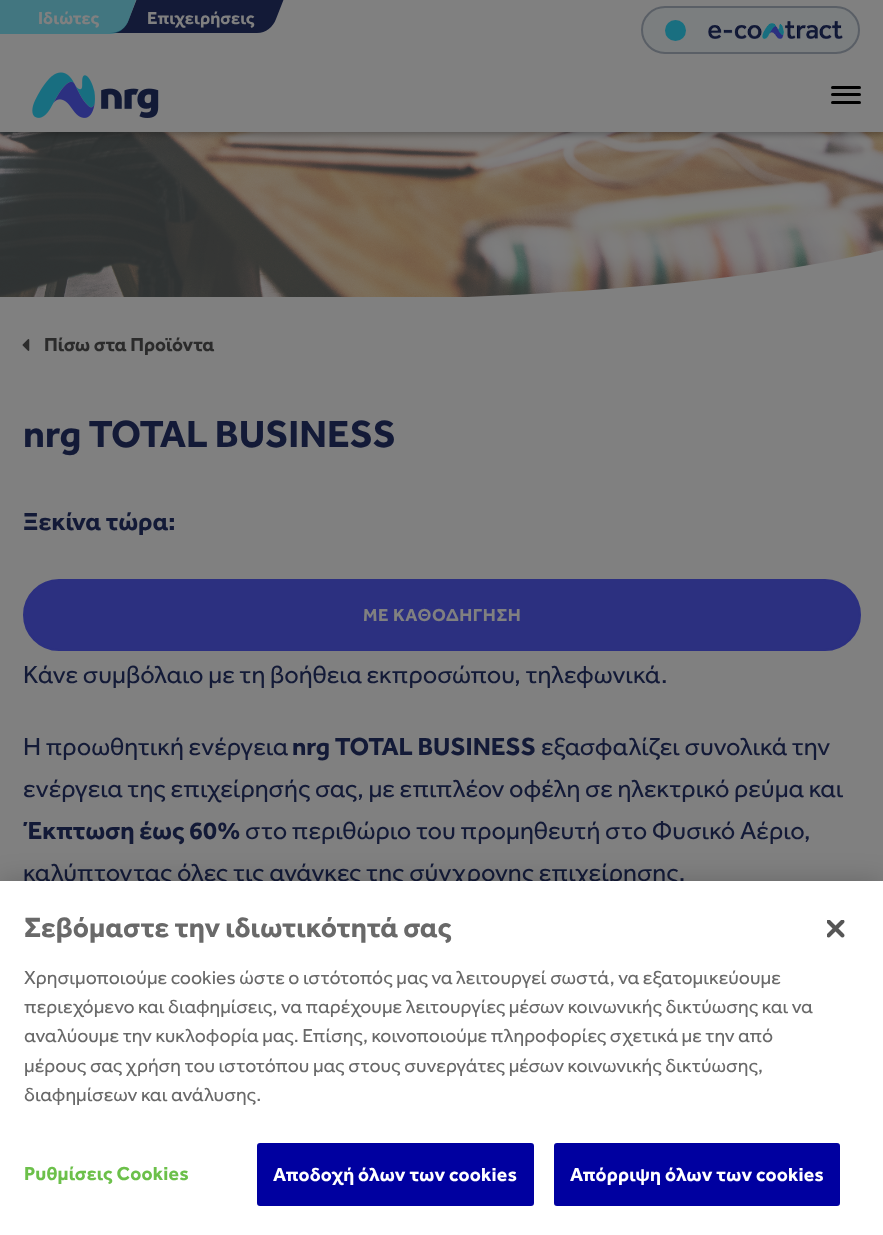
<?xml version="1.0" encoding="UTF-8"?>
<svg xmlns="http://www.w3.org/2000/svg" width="883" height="1235">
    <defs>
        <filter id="blur1" x="-50%" y="-200%" width="200%" height="500%"><feGaussianBlur stdDeviation="3"/></filter>
        <clipPath id="clip1"><rect x="0" y="245" width="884" height="52"/></clipPath>
        <filter id="blur2" x="-50%" y="-200%" width="200%" height="500%"><feGaussianBlur stdDeviation="13.5"/></filter>
    </defs>
    <rect width="100%" height="100%" fill="#808080"/>
    <image x="0" y="132" width="883" height="165" href="img_03.png"/>
    <rect x="0" y="3" width="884" height="132" fill="#000000" fill-opacity="0.25" filter="url(#blur1)"/>
    <rect x="0" y="0" width="883" height="132" fill="#808080"/>
    <path d="M 285 -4 L 276 19 C 273 27 266 33 257 33 H 110 C 119 33 126 28 129 19 L 138 -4 Z" fill="#131A37"/>
    <path d="M 0 34 H 110 C 118 34 125 29 128 22 L 136 0 H 0 Z" fill="#196F80" fill-opacity="0.6"/>
    <text x="38" y="24" font-family="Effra" font-size="18" font-weight="700" fill="#808080">Ιδιώτες</text>
    <text x="147" y="24" font-family="Effra" font-size="18" font-weight="700" fill="#808080">Επιχειρήσεις</text>
    <rect x="642" y="7" width="217" height="46" rx="23" fill="#7B7E7F" stroke="#5A5F66" stroke-width="2"/>
    <circle cx="675.5" cy="30.5" r="10.5" fill="#196F80"/>
    <image x="708" y="21" width="135" height="18" href="img_01.png"/>
    <image x="32" y="72" width="127" height="46" href="img_02.png"/>
    <rect x="831" y="93" width="30" height="3" rx="1.5" fill="#000000"/>
    <rect x="831" y="86" width="30" height="3" rx="1.5" fill="#000000"/>
    <rect x="831" y="101" width="30" height="3" rx="1.5" fill="#000000"/>
    <g clip-path="url(#clip1)">
        <path d="M 75 302 H 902 V 245 C 762 283 529 302 201 302 Z" fill="#808080"/>
    </g>
    <image x="22" y="339" width="8" height="12" href="img_04.png"/>
    <text x="44" y="351" font-family="Effra" font-size="19.5" font-weight="700" fill="#2B2B2B">Πίσω στα Προϊόντα</text>
    <text x="23" y="447" font-family="Effra" font-size="39" font-weight="700" fill="#131A37">nrg TOTAL BUSINESS</text>
    <text x="23" y="530" font-family="Effra" font-size="25.5" font-weight="700" fill="#131A37">Ξεκίνα τώρα:</text>
    <rect x="24" y="580" width="836" height="70" rx="35" fill="#2C3080" stroke="#2C3080" stroke-width="2"/>
    <text x="363" y="621" font-family="Effra" font-size="18" font-weight="700" letter-spacing="0.6" fill="#808080">ΜΕ ΚΑΘΟΔΗΓΗΣΗ</text>
    <text x="23" y="683" font-family="Effra" font-size="25.5" fill="#131A37">Κάνε συμβόλαιο με τη βοήθεια εκπροσώπου, τηλεφωνικά.</text>
    <text x="23" y="755" font-family="Effra" font-size="25.5" fill="#131A37">H προωθητική ενέργεια</text>
    <text x="292" y="755" font-family="Effra" font-size="25.5" font-weight="700" fill="#131A37">nrg TOTAL BUSINESS</text>
    <text x="541" y="755" font-family="Effra" font-size="25.5" fill="#131A37">εξασφαλίζει συνολικά την</text>
    <text x="23" y="797" font-family="Effra" font-size="25.5" fill="#131A37">ενέργεια της επιχείρησής σας, με επιπλέον οφέλη σε ηλεκτρικό ρεύμα και</text>
    <text x="23" y="839" font-family="Effra" font-size="25.5" font-weight="700" fill="#131A37">Έκπτωση έως 60%</text>
    <text x="245" y="839" font-family="Effra" font-size="25.5" fill="#131A37">στο περιθώριο του προμηθευτή στο Φυσικό Αέριο,</text>
    <text x="23" y="881" font-family="Effra" font-size="25.5" fill="#131A37">καλύπτοντας όλες τις ανάγκες της σύγχρονης επιχείρησης.</text>
    <rect x="0" y="881" width="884" height="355" fill="#000000" fill-opacity="0.2" filter="url(#blur2)"/>
    <rect x="0" y="881" width="883" height="354" fill="#FFFFFF"/>
    <text x="24" y="937" font-family="Effra" font-size="28.75" font-weight="700" fill="#696969">Σεβόμαστε την ιδιωτικότητά σας</text>
    <text font-family="Effra" font-size="19.5" fill="#696969">
        <tspan x="24" y="984">Χρησιμοποιούμε cookies ώστε ο ιστότοπός μας να λειτουργεί σωστά, να εξατομικεύουμε</tspan>
        <tspan x="24" y="1013">περιεχόμενο και διαφημίσεις, να παρέχουμε λειτουργίες μέσων κοινωνικής δικτύωσης και να</tspan>
        <tspan x="24" y="1042">αναλύουμε την κυκλοφορία μας. Επίσης, κοινοποιούμε πληροφορίες σχετικά με την από</tspan>
        <tspan x="24" y="1072">μέρους σας χρήση του ιστοτόπου μας στους συνεργάτες μέσων κοινωνικής δικτύωσης,</tspan>
        <tspan x="24" y="1101">διαφημίσεων και ανάλυσης.</tspan>
    </text>
    <text x="24" y="1180" font-family="Effra" font-size="19.5" font-weight="700" letter-spacing="0.2" fill="#6CC04A">Ρυθμίσεις Cookies</text>
    <rect x="258" y="1144" width="275" height="61" rx="2" fill="#0000A0" stroke="#0000A0" stroke-width="2"/>
    <text x="273" y="1181" font-family="Effra" font-size="19.5" font-weight="700" letter-spacing="0.2" fill="#FFFFFF">Αποδοχή όλων των cookies</text>
    <rect x="555" y="1144" width="284" height="61" rx="2" fill="#0000A0" stroke="#0000A0" stroke-width="2"/>
    <text x="570" y="1181" font-family="Effra" font-size="19.5" font-weight="700" letter-spacing="0.2" fill="#FFFFFF">Απόρριψη όλων των cookies</text>
    <image x="827" y="920" width="18" height="18" href="img_05.png"/>
</svg>
